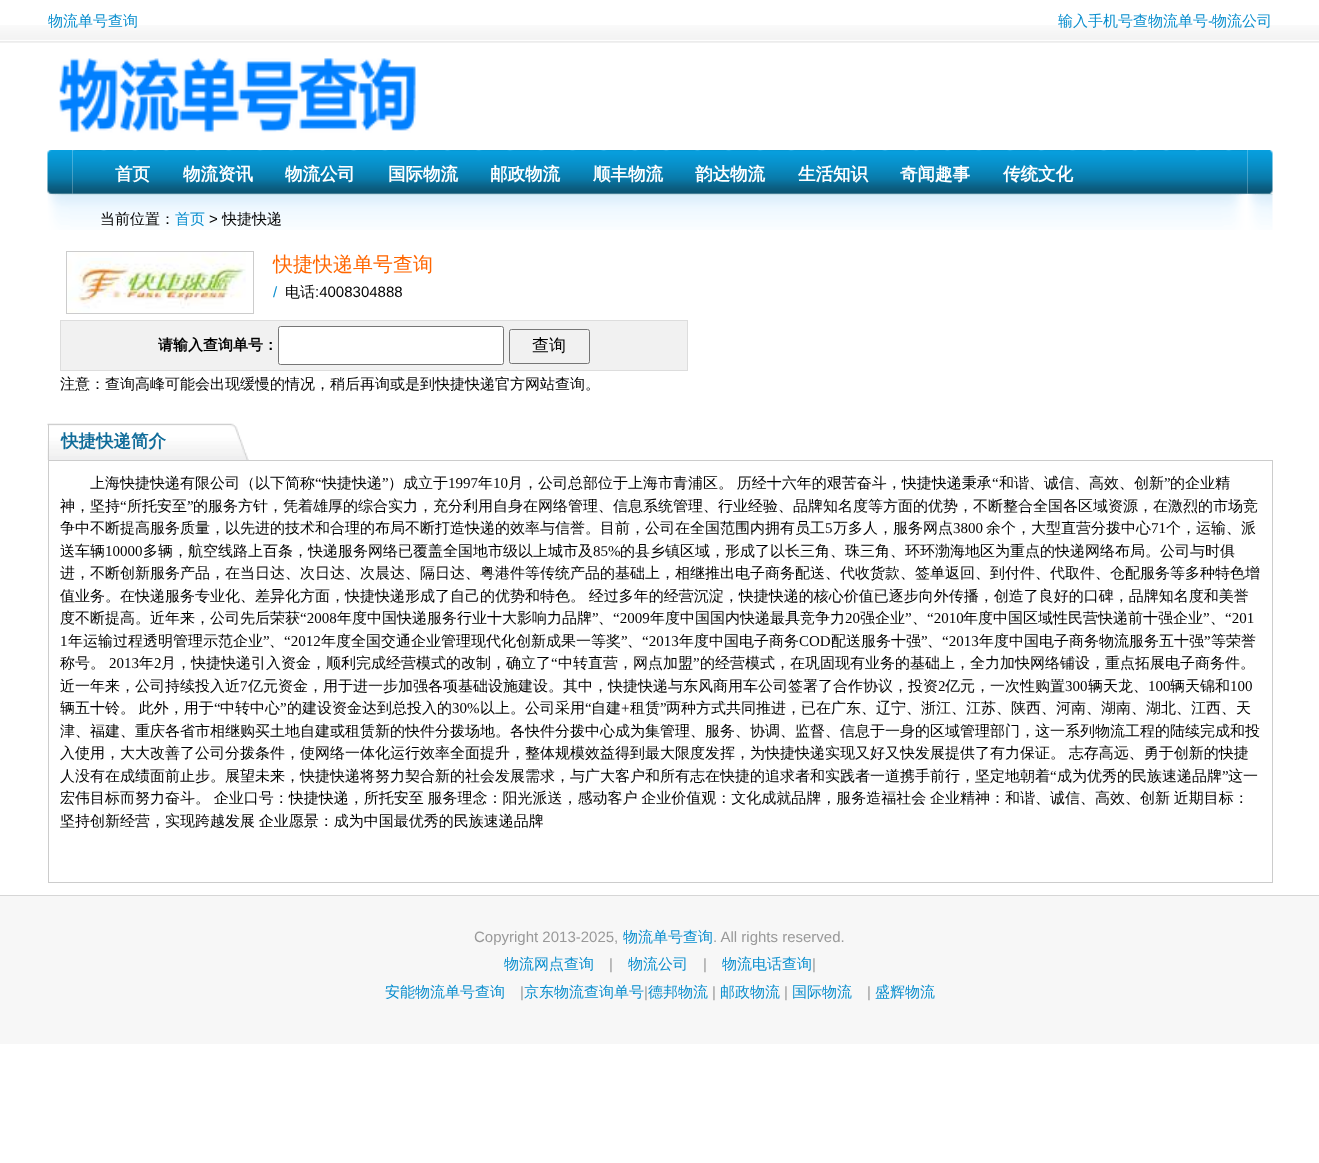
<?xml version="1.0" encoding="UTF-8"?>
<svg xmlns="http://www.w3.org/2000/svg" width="1319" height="1163">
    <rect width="100%" height="100%" fill="#FFFFFF"/>
    <image x="0" y="25" width="1319" height="18" href="img_01.png"/>
    <text x="48" y="26" font-family="WenQuanYi Zen Hei" font-size="15" font-weight="500" fill="#0A8ECE">物流单号查询</text>
    <text x="1058" y="26" font-family="WenQuanYi Zen Hei" font-size="15" font-weight="500" fill="#0A8ECE">输入手机号查物流单号</text>
    <text x="1208" y="26" font-family="Liberation Sans" font-size="15" fill="#0A8ECE">-</text>
    <text x="1212" y="26" font-family="WenQuanYi Zen Hei" font-size="15" font-weight="500" fill="#0A8ECE">物流公司</text>
    <image x="59" y="58" width="357" height="75" href="img_02.png"/>
    <image x="47" y="193" width="1226" height="37" href="img_06.png"/>
    <image x="47" y="150" width="26" height="44" href="img_03.png"/>
    <image x="72" y="150" width="1176" height="44" href="img_04.png"/>
    <text x="115" y="180" font-family="WenQuanYi Zen Hei" font-size="17.5" font-weight="700" fill="#FFFFFF">首页</text>
    <text x="183" y="180" font-family="WenQuanYi Zen Hei" font-size="17.5" font-weight="700" fill="#FFFFFF">物流资讯</text>
    <text x="285" y="180" font-family="WenQuanYi Zen Hei" font-size="17.5" font-weight="700" fill="#FFFFFF">物流公司</text>
    <text x="388" y="180" font-family="WenQuanYi Zen Hei" font-size="17.5" font-weight="700" fill="#FFFFFF">国际物流</text>
    <text x="490" y="180" font-family="WenQuanYi Zen Hei" font-size="17.5" font-weight="700" fill="#FFFFFF">邮政物流</text>
    <text x="593" y="180" font-family="WenQuanYi Zen Hei" font-size="17.5" font-weight="700" fill="#FFFFFF">顺丰物流</text>
    <text x="695" y="180" font-family="WenQuanYi Zen Hei" font-size="17.5" font-weight="700" fill="#FFFFFF">韵达物流</text>
    <text x="798" y="180" font-family="WenQuanYi Zen Hei" font-size="17.5" font-weight="700" fill="#FFFFFF">生活知识</text>
    <text x="900" y="180" font-family="WenQuanYi Zen Hei" font-size="17.5" font-weight="700" fill="#FFFFFF">奇闻趣事</text>
    <text x="1003" y="180" font-family="WenQuanYi Zen Hei" font-size="17.5" font-weight="700" fill="#FFFFFF">传统文化</text>
    <image x="1247" y="150" width="26" height="44" href="img_05.png"/>
    <text x="100" y="224" font-family="WenQuanYi Zen Hei" font-size="15" font-weight="500" fill="#000000">当前位置：</text>
    <text x="175" y="224" font-family="WenQuanYi Zen Hei" font-size="15" font-weight="500" fill="#0A8ECE">首页</text>
    <text x="209" y="224" font-family="Liberation Sans" font-size="15" fill="#000000">&gt;</text>
    <text x="222" y="224" font-family="WenQuanYi Zen Hei" font-size="15" font-weight="500" fill="#000000">快捷快递</text>
    <rect x="66.5" y="251.5" width="187" height="62" fill="none" stroke="#CCCCCC"/>
    <image x="67" y="252" width="179" height="61" href="img_07.png"/>
    <text x="273" y="271" font-family="WenQuanYi Zen Hei" font-size="20" font-weight="500" fill="#FF6600">快捷快递单号查询</text>
    <text x="273" y="297" font-family="Liberation Sans" font-size="15" fill="#0A8ECE">/</text>
    <text x="285" y="297" font-family="WenQuanYi Zen Hei" font-size="15" font-weight="500" fill="#000000">电话</text>
    <text x="315" y="297" font-family="Liberation Sans" font-size="15" fill="#000000">:4008304888</text>
    <rect x="60.5" y="320.5" width="627" height="50" fill="#F1F1F1" stroke="#DDDDDD"/>
    <text x="158" y="350" font-family="WenQuanYi Zen Hei" font-size="15" font-weight="700" fill="#000000">请输入查询单号：</text>
    <rect x="278.5" y="326.5" width="225" height="38" rx="2" fill="#FFFFFF" stroke="#767676"/>
    <rect x="509.5" y="329.5" width="80" height="34" rx="2" fill="none" stroke="#767676"/>
    <text x="532" y="351" font-family="WenQuanYi Zen Hei" font-size="17" font-weight="500" fill="#000000">查询</text>
    <text x="60" y="389" font-family="WenQuanYi Zen Hei" font-size="15" font-weight="500" fill="#000000">注意：查询高峰可能会出现缓慢的情况，稍后再询或是到快捷快递官方网站查询。</text>
    <image x="47" y="423" width="202" height="37" href="img_08.png"/>
    <rect x="48" y="424" width="1" height="36" fill="#CCCCCC"/>
    <text x="61" y="447" font-family="WenQuanYi Zen Hei" font-size="17.5" font-weight="700" fill="#0F6B99">快捷快递简介</text>
    <rect x="48.5" y="460.5" width="1224" height="422" fill="none" stroke="#CCCCCC"/>
    <text x="90" y="488" font-family="WenQuanYi Zen Hei" font-size="15" font-weight="500" fill="#000000">上海快捷快递有限公司（以下简称</text>
    <text x="315" y="488" font-family="Liberation Serif" font-size="15" fill="#000000">“</text>
    <text x="322" y="488" font-family="WenQuanYi Zen Hei" font-size="15" font-weight="500" fill="#000000">快捷快递</text>
    <text x="382" y="488" font-family="Liberation Serif" font-size="15" fill="#000000">”</text>
    <text x="388" y="488" font-family="WenQuanYi Zen Hei" font-size="15" font-weight="500" fill="#000000">）成立于</text>
    <text x="448" y="488" font-family="Liberation Serif" font-size="15" fill="#000000">1997</text>
    <text x="478" y="488" font-family="WenQuanYi Zen Hei" font-size="15" font-weight="500" fill="#000000">年</text>
    <text x="493" y="488" font-family="Liberation Serif" font-size="15" fill="#000000">10</text>
    <text x="508" y="488" word-spacing="-0.75" font-family="WenQuanYi Zen Hei" font-size="15" font-weight="500" fill="#000000">月，公司总部位于上海市青浦区。 历经十六年的艰苦奋斗，快捷快递秉承</text>
    <text x="992" y="488" font-family="Liberation Serif" font-size="15" fill="#000000">“</text>
    <text x="999" y="488" font-family="WenQuanYi Zen Hei" font-size="15" font-weight="500" fill="#000000">和谐、诚信、高效、创新</text>
    <text x="1164" y="488" font-family="Liberation Serif" font-size="15" fill="#000000">”</text>
    <text x="1170" y="488" font-family="WenQuanYi Zen Hei" font-size="15" font-weight="500" fill="#000000">的企业精</text>
    <text x="60" y="511" font-family="WenQuanYi Zen Hei" font-size="15" font-weight="500" fill="#000000">神，坚持</text>
    <text x="120" y="511" font-family="Liberation Serif" font-size="15" fill="#000000">“</text>
    <text x="127" y="511" font-family="WenQuanYi Zen Hei" font-size="15" font-weight="500" fill="#000000">所托安至</text>
    <text x="187" y="511" font-family="Liberation Serif" font-size="15" fill="#000000">”</text>
    <text x="193" y="511" font-family="WenQuanYi Zen Hei" font-size="15" font-weight="500" fill="#000000">的服务方针，凭着雄厚的综合实力，充分利用自身在网络管理、信息系统管理、行业经验、品牌知名度等方面的优势，不断整合全国各区域资源，在激烈的市场竞</text>
    <text x="60" y="533" font-family="WenQuanYi Zen Hei" font-size="15" font-weight="500" fill="#000000">争中不断提高服务质量，以先进的技术和合理的布局不断打造快递的效率与信誉。目前，公司在全国范围内拥有员工</text>
    <text x="825" y="533" font-family="Liberation Serif" font-size="15" fill="#000000">5</text>
    <text x="833" y="533" font-family="WenQuanYi Zen Hei" font-size="15" font-weight="500" fill="#000000">万多人，服务网点</text>
    <text x="953" y="533" font-family="Liberation Serif" font-size="15" fill="#000000">3800</text>
    <text x="986" y="533" font-family="WenQuanYi Zen Hei" font-size="15" font-weight="500" fill="#000000">余个，大型直营分拨中心</text>
    <text x="1151" y="533" font-family="Liberation Serif" font-size="15" fill="#000000">71</text>
    <text x="1166" y="533" font-family="WenQuanYi Zen Hei" font-size="15" font-weight="500" fill="#000000">个，运输、派</text>
    <text x="60" y="556" font-family="WenQuanYi Zen Hei" font-size="15" font-weight="500" fill="#000000">送车辆</text>
    <text x="105" y="556" font-family="Liberation Serif" font-size="15" fill="#000000">10000</text>
    <text x="143" y="556" font-family="WenQuanYi Zen Hei" font-size="15" font-weight="500" fill="#000000">多辆，航空线路上百条，快递服务网络已覆盖全国地市级以上城市及</text>
    <text x="593" y="556" font-family="Liberation Serif" font-size="15" fill="#000000">85%</text>
    <text x="620" y="556" font-family="WenQuanYi Zen Hei" font-size="15" font-weight="500" fill="#000000">的县乡镇区域，形成了以长三角、珠三角、环环渤海地区为重点的快递网络布局。公司与时俱</text>
    <text font-family="WenQuanYi Zen Hei" font-size="15" font-weight="500" fill="#000000">
        <tspan x="60" y="578">进，不断创新服务产品，在当日达、次日达、次晨达、隔日达、粤港件等传统产品的基础上，相继推出电子商务配送、代收货款、签单返回、到付件、代取件、仓配服务等多种特色增</tspan>
        <tspan x="60" y="601" word-spacing="-0.75">值业务。在快递服务专业化、差异化方面，快捷快递形成了自己的优势和特色。 经过多年的经营沉淀，快捷快递的核心价值已逐步向外传播，创造了良好的口碑，品牌知名度和美誉</tspan>
        <tspan x="60" y="623">度不断提高。近年来，公司先后荣获</tspan>
    </text>
    <text x="300" y="623" font-family="Liberation Serif" font-size="15" fill="#000000">“2008</text>
    <text x="337" y="623" font-family="WenQuanYi Zen Hei" font-size="15" font-weight="500" fill="#000000">年度中国快递服务行业十大影响力品牌</text>
    <text x="592" y="623" font-family="Liberation Serif" font-size="15" fill="#000000">”</text>
    <text x="598" y="623" font-family="WenQuanYi Zen Hei" font-size="15" font-weight="500" fill="#000000">、</text>
    <text x="613" y="623" font-family="Liberation Serif" font-size="15" fill="#000000">“2009</text>
    <text x="650" y="623" font-family="WenQuanYi Zen Hei" font-size="15" font-weight="500" fill="#000000">年度中国国内快递最具竞争力</text>
    <text x="845" y="623" font-family="Liberation Serif" font-size="15" fill="#000000">20</text>
    <text x="860" y="623" font-family="WenQuanYi Zen Hei" font-size="15" font-weight="500" fill="#000000">强企业</text>
    <text x="905" y="623" font-family="Liberation Serif" font-size="15" fill="#000000">”</text>
    <text x="912" y="623" font-family="WenQuanYi Zen Hei" font-size="15" font-weight="500" fill="#000000">、</text>
    <text x="927" y="623" font-family="Liberation Serif" font-size="15" fill="#000000">“2010</text>
    <text x="963" y="623" font-family="WenQuanYi Zen Hei" font-size="15" font-weight="500" fill="#000000">年度中国区域性民营快递前十强企业</text>
    <text x="1203" y="623" font-family="Liberation Serif" font-size="15" fill="#000000">”</text>
    <text x="1210" y="623" font-family="WenQuanYi Zen Hei" font-size="15" font-weight="500" fill="#000000">、</text>
    <text x="1225" y="623" font-family="Liberation Serif" font-size="15" fill="#000000">“201</text>
    <text x="60" y="646" font-family="Liberation Serif" font-size="15" fill="#000000">1</text>
    <text x="68" y="646" font-family="WenQuanYi Zen Hei" font-size="15" font-weight="500" fill="#000000">年运输过程透明管理示范企业</text>
    <text x="263" y="646" font-family="Liberation Serif" font-size="15" fill="#000000">”</text>
    <text x="284" y="646" font-family="Liberation Serif" font-size="15" fill="#000000">“2012</text>
    <text x="321" y="646" font-family="WenQuanYi Zen Hei" font-size="15" font-weight="500" fill="#000000">年度全国交通企业管理现代化创新成果一等奖</text>
    <text x="621" y="646" font-family="Liberation Serif" font-size="15" fill="#000000">”</text>
    <text x="642" y="646" font-family="Liberation Serif" font-size="15" fill="#000000">“2013</text>
    <text x="679" y="646" font-family="WenQuanYi Zen Hei" font-size="15" font-weight="500" fill="#000000">年度中国电子商务</text>
    <text x="799" y="646" font-family="Liberation Serif" font-size="15" fill="#000000">COD</text>
    <text x="831" y="646" font-family="WenQuanYi Zen Hei" font-size="15" font-weight="500" fill="#000000">配送服务十强</text>
    <text x="921" y="646" font-family="Liberation Serif" font-size="15" fill="#000000">”</text>
    <text x="942" y="646" font-family="Liberation Serif" font-size="15" fill="#000000">“2013</text>
    <text x="979" y="646" font-family="WenQuanYi Zen Hei" font-size="15" font-weight="500" fill="#000000">年度中国电子商务物流服务五十强</text>
    <text x="1204" y="646" font-family="Liberation Serif" font-size="15" fill="#000000">”</text>
    <text x="1211" y="646" font-family="WenQuanYi Zen Hei" font-size="15" font-weight="500" fill="#000000">等荣誉</text>
    <text x="269" y="646" font-family="WenQuanYi Zen Hei" font-size="15" font-weight="500" fill="#000000">、</text>
    <text x="627" y="646" font-family="WenQuanYi Zen Hei" font-size="15" font-weight="500" fill="#000000">、</text>
    <text x="927" y="646" font-family="WenQuanYi Zen Hei" font-size="15" font-weight="500" fill="#000000">、</text>
    <text x="60" y="668" font-family="WenQuanYi Zen Hei" font-size="15" font-weight="500" fill="#000000">称号。</text>
    <text x="109" y="668" font-family="Liberation Serif" font-size="15" fill="#000000">2013</text>
    <text x="139" y="668" font-family="WenQuanYi Zen Hei" font-size="15" font-weight="500" fill="#000000">年</text>
    <text x="154" y="668" font-family="Liberation Serif" font-size="15" fill="#000000">2</text>
    <text x="161" y="668" font-family="WenQuanYi Zen Hei" font-size="15" font-weight="500" fill="#000000">月，快捷快递引入资金，顺利完成经营模式的改制，确立了</text>
    <text x="551" y="668" font-family="Liberation Serif" font-size="15" fill="#000000">“</text>
    <text x="558" y="668" font-family="WenQuanYi Zen Hei" font-size="15" font-weight="500" fill="#000000">中转直营，网点加盟</text>
    <text x="693" y="668" font-family="Liberation Serif" font-size="15" fill="#000000">”</text>
    <text x="700" y="668" font-family="WenQuanYi Zen Hei" font-size="15" font-weight="500" fill="#000000">的经营模式，在巩固现有业务的基础上，全力加快网络铺设，重点拓展电子商务件。</text>
    <text x="60" y="691" font-family="WenQuanYi Zen Hei" font-size="15" font-weight="500" fill="#000000">近一年来，公司持续投入近</text>
    <text x="240" y="691" font-family="Liberation Serif" font-size="15" fill="#000000">7</text>
    <text x="248" y="691" font-family="WenQuanYi Zen Hei" font-size="15" font-weight="500" fill="#000000">亿元资金，用于进一步加强各项基础设施建设。其中，快捷快递与东风商用车公司签署了合作协议，投资</text>
    <text x="938" y="691" font-family="Liberation Serif" font-size="15" fill="#000000">2</text>
    <text x="945" y="691" font-family="WenQuanYi Zen Hei" font-size="15" font-weight="500" fill="#000000">亿元，一次性购置</text>
    <text x="1065" y="691" font-family="Liberation Serif" font-size="15" fill="#000000">300</text>
    <text x="1088" y="691" font-family="WenQuanYi Zen Hei" font-size="15" font-weight="500" fill="#000000">辆天龙、</text>
    <text x="1148" y="691" font-family="Liberation Serif" font-size="15" fill="#000000">100</text>
    <text x="1170" y="691" font-family="WenQuanYi Zen Hei" font-size="15" font-weight="500" fill="#000000">辆天锦和</text>
    <text x="1230" y="691" font-family="Liberation Serif" font-size="15" fill="#000000">100</text>
    <text x="60" y="713" word-spacing="-0.75" font-family="WenQuanYi Zen Hei" font-size="15" font-weight="500" fill="#000000">辆五十铃。 此外，用于</text>
    <text x="214" y="713" font-family="Liberation Serif" font-size="15" fill="#000000">“</text>
    <text x="220" y="713" font-family="WenQuanYi Zen Hei" font-size="15" font-weight="500" fill="#000000">中转中心</text>
    <text x="280" y="713" font-family="Liberation Serif" font-size="15" fill="#000000">”</text>
    <text x="287" y="713" font-family="WenQuanYi Zen Hei" font-size="15" font-weight="500" fill="#000000">的建设资金达到总投入的</text>
    <text x="452" y="713" font-family="Liberation Serif" font-size="15" fill="#000000">30%</text>
    <text x="480" y="713" font-family="WenQuanYi Zen Hei" font-size="15" font-weight="500" fill="#000000">以上。公司采用</text>
    <text x="585" y="713" font-family="Liberation Serif" font-size="15" fill="#000000">“</text>
    <text x="591" y="713" font-family="WenQuanYi Zen Hei" font-size="15" font-weight="500" fill="#000000">自建</text>
    <text x="621" y="713" font-family="Liberation Serif" font-size="15" fill="#000000">+</text>
    <text x="630" y="713" font-family="WenQuanYi Zen Hei" font-size="15" font-weight="500" fill="#000000">租赁</text>
    <text x="660" y="713" font-family="Liberation Serif" font-size="15" fill="#000000">”</text>
    <text x="666" y="713" font-family="WenQuanYi Zen Hei" font-size="15" font-weight="500" fill="#000000">两种方式共同推进，已在广东、辽宁、浙江、江苏、陕西、河南、湖南、湖北、江西、天</text>
    <text font-family="WenQuanYi Zen Hei" font-size="15" font-weight="500" fill="#000000">
        <tspan x="60" y="736">津、福建、重庆各省市相继购买土地自建或租赁新的快件分拨场地。各快件分拨中心成为集管理、服务、协调、监督、信息于一身的区域管理部门，这一系列物流工程的陆续完成和投</tspan>
        <tspan x="60" y="758" word-spacing="-0.75">入使用，大大改善了公司分拨条件，使网络一体化运行效率全面提升，整体规模效益得到最大限度发挥，为快捷快递实现又好又快发展提供了有力保证。 志存高远、勇于创新的快捷</tspan>
        <tspan x="60" y="781">人没有在成绩面前止步。展望未来，快捷快递将努力契合新的社会发展需求，与广大客户和所有志在快捷的追求者和实践者一道携手前行，坚定地朝着</tspan>
    </text>
    <text x="1050" y="781" font-family="Liberation Serif" font-size="15" fill="#000000">“</text>
    <text x="1057" y="781" font-family="WenQuanYi Zen Hei" font-size="15" font-weight="500" fill="#000000">成为优秀的民族速递品牌</text>
    <text x="1222" y="781" font-family="Liberation Serif" font-size="15" fill="#000000">”</text>
    <text x="1228" y="781" font-family="WenQuanYi Zen Hei" font-size="15" font-weight="500" fill="#000000">这一</text>
    <text font-family="WenQuanYi Zen Hei" font-size="15" font-weight="500" fill="#000000">
        <tspan x="60" y="803" word-spacing="-0.75">宏伟目标而努力奋斗。 企业口号：快捷快递，所托安至 服务理念：阳光派送，感动客户 企业价值观：文化成就品牌，服务造福社会 企业精神：和谐、诚信、高效、创新 近期目标：</tspan>
        <tspan x="60" y="826" word-spacing="-0.75">坚持创新经营，实现跨越发展 企业愿景：成为中国最优秀的民族速递品牌</tspan>
    </text>
    <rect x="0" y="896" width="1319" height="148" fill="#F7F7F7"/>
    <rect x="0" y="895" width="1319" height="1" fill="#D6D6D6"/>
    <text x="474" y="942" font-family="Liberation Sans" font-size="15" fill="#999999">Copyright 2013-2025,</text>
    <text x="623" y="942" font-family="WenQuanYi Zen Hei" font-size="15" font-weight="500" fill="#0A8ECE">物流单号查询</text>
    <text x="713" y="942" font-family="Liberation Sans" font-size="15" fill="#999999">. All rights reserved.</text>
    <text x="504" y="969" font-family="WenQuanYi Zen Hei" font-size="15" font-weight="500" fill="#0A8ECE">物流网点查询</text>
    <text x="609" y="969" font-family="Liberation Sans" font-size="15" fill="#999999">|</text>
    <text x="628" y="969" font-family="WenQuanYi Zen Hei" font-size="15" font-weight="500" fill="#0A8ECE">物流公司</text>
    <text x="703" y="969" font-family="Liberation Sans" font-size="15" fill="#999999">|</text>
    <text x="722" y="969" font-family="WenQuanYi Zen Hei" font-size="15" font-weight="500" fill="#0A8ECE">物流电话查询</text>
    <text x="812" y="969" font-family="Liberation Sans" font-size="15" fill="#999999">|</text>
    <text x="385" y="997" font-family="WenQuanYi Zen Hei" font-size="15" font-weight="500" fill="#0A8ECE">安能物流单号查询</text>
    <text x="520" y="997" font-family="Liberation Sans" font-size="15" fill="#999999">|</text>
    <text x="524" y="997" font-family="WenQuanYi Zen Hei" font-size="15" font-weight="500" fill="#0A8ECE">京东物流查询单号</text>
    <text x="644" y="997" font-family="Liberation Sans" font-size="15" fill="#999999">|</text>
    <text x="648" y="997" font-family="WenQuanYi Zen Hei" font-size="15" font-weight="500" fill="#0A8ECE">德邦物流</text>
    <text x="712" y="997" font-family="Liberation Sans" font-size="15" fill="#999999">|</text>
    <text x="720" y="997" font-family="WenQuanYi Zen Hei" font-size="15" font-weight="500" fill="#0A8ECE">邮政物流</text>
    <text x="784" y="997" font-family="Liberation Sans" font-size="15" fill="#999999">|</text>
    <text x="792" y="997" font-family="WenQuanYi Zen Hei" font-size="15" font-weight="500" fill="#0A8ECE">国际物流</text>
    <text x="867" y="997" font-family="Liberation Sans" font-size="15" fill="#999999">|</text>
    <text x="875" y="997" font-family="WenQuanYi Zen Hei" font-size="15" font-weight="500" fill="#0A8ECE">盛辉物流</text>
</svg>
